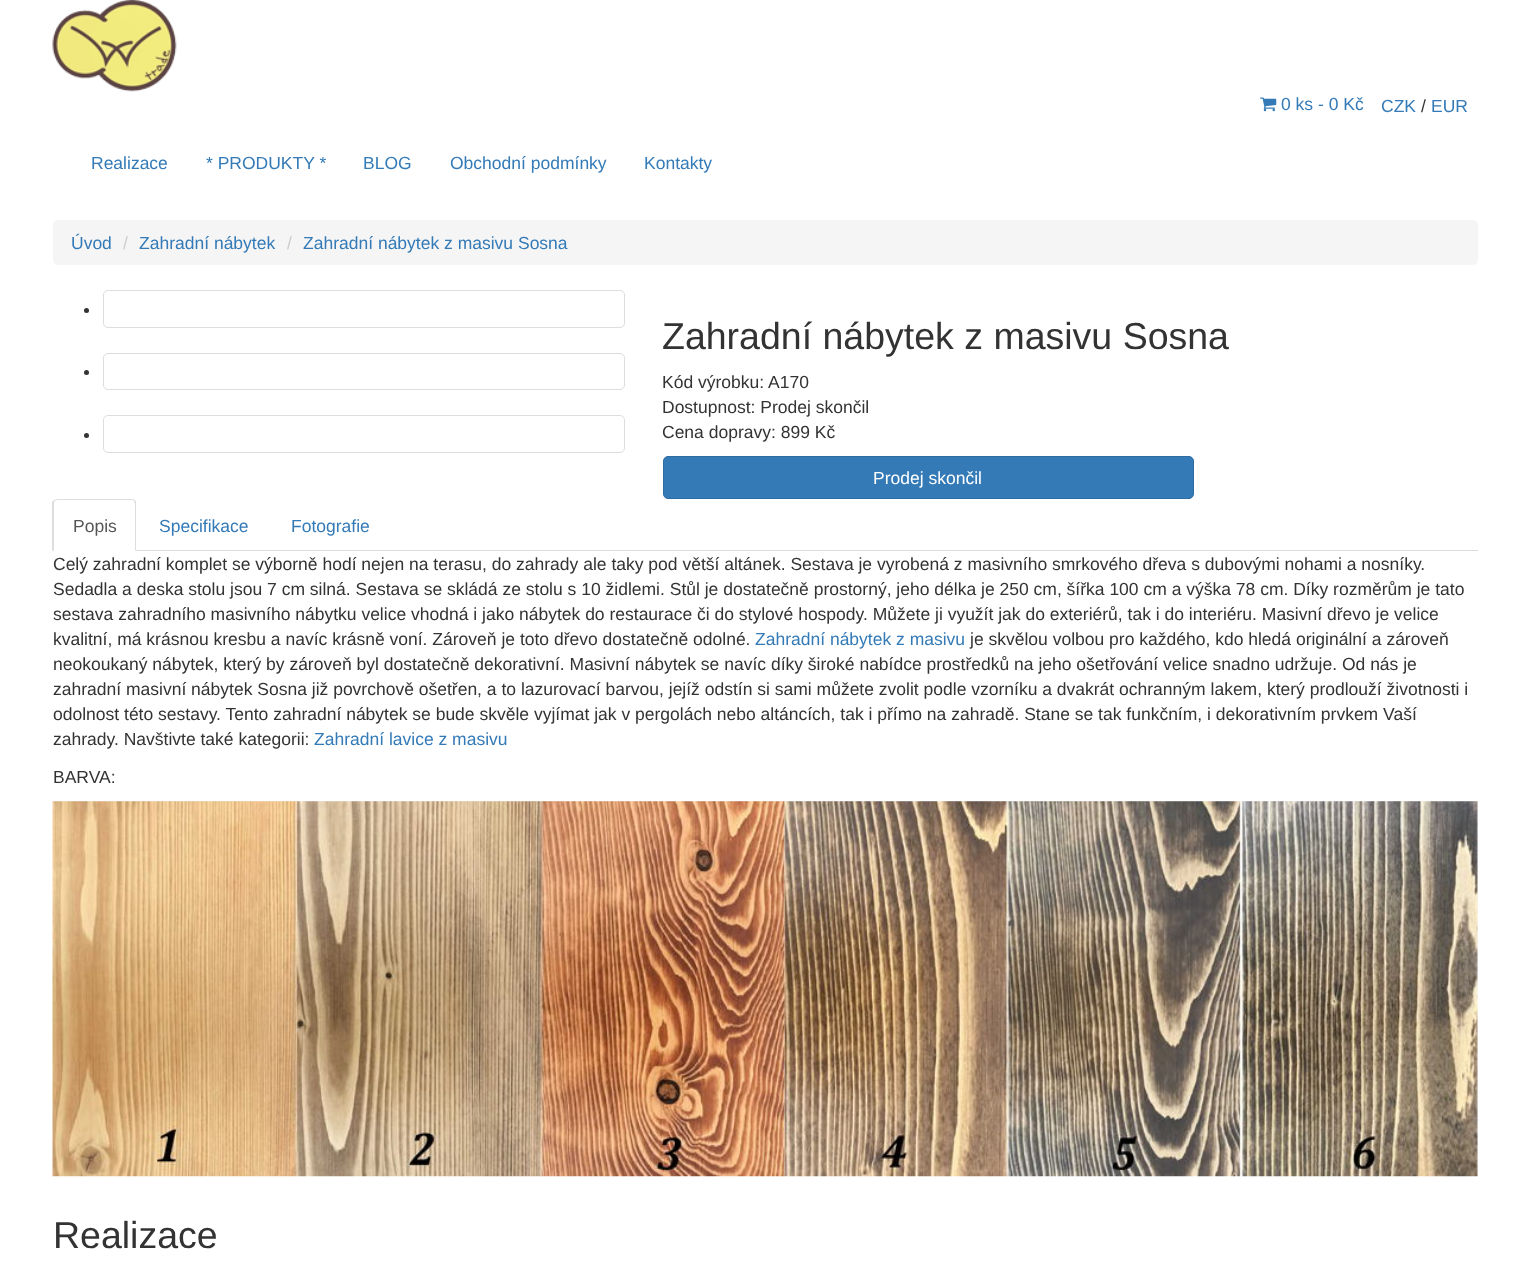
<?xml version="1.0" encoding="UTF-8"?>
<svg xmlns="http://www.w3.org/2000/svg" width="1529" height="1267">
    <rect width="100%" height="100%" fill="#FFFFFF"/>
    <image x="52" y="0" width="125" height="92" href="img_01.png"/>
    <image x="1260" y="97" width="17" height="15" href="img_02.png"/>
    <text x="1281" y="110" font-family="Liberation Sans" font-size="17.5" fill="#337AB7">0 ks - 0 Kč</text>
    <text x="1381" y="112" font-family="Liberation Sans" font-size="17.5" fill="#337AB7">CZK</text>
    <text x="1421" y="112" font-family="Liberation Sans" font-size="17.5" fill="#333333">/</text>
    <text x="1431" y="112" font-family="Liberation Sans" font-size="17.5" fill="#337AB7">EUR</text>
    <text x="91" y="169" font-family="Liberation Sans" font-size="17.5" fill="#337AB7">Realizace</text>
    <text x="206" y="169" font-family="Liberation Sans" font-size="17.5" fill="#337AB7">* PRODUKTY *</text>
    <text x="363" y="169" font-family="Liberation Sans" font-size="17.5" fill="#337AB7">BLOG</text>
    <text x="450" y="169" font-family="Liberation Sans" font-size="17.5" fill="#337AB7">Obchodní podmínky</text>
    <text x="644" y="169" font-family="Liberation Sans" font-size="17.5" fill="#337AB7">Kontakty</text>
    <rect x="53" y="220" width="1425" height="45" rx="5" fill="#F5F5F5"/>
    <text x="71" y="249" font-family="Liberation Sans" font-size="17.5" fill="#337AB7">Úvod</text>
    <text x="123" y="249" font-family="Liberation Sans" font-size="17.5" fill="#CCCCCC">/</text>
    <text x="139" y="249" font-family="Liberation Sans" font-size="17.5" fill="#337AB7">Zahradní nábytek</text>
    <text x="287" y="249" font-family="Liberation Sans" font-size="17.5" fill="#CCCCCC">/</text>
    <text x="303" y="249" font-family="Liberation Sans" font-size="17.5" fill="#337AB7">Zahradní nábytek z masivu Sosna</text>
    <circle cx="86.5" cy="310.5" r="2.5" fill="#333333"/>
    <rect x="103.5" y="290.5" width="521" height="37" rx="4.5" fill="none" stroke="#DDDDDD"/>
    <circle cx="86.5" cy="372.5" r="2.5" fill="#333333"/>
    <rect x="103.5" y="353.5" width="521" height="36" rx="4.5" fill="none" stroke="#DDDDDD"/>
    <circle cx="86.5" cy="435.5" r="2.5" fill="#333333"/>
    <rect x="103.5" y="415.5" width="521" height="37" rx="4.5" fill="none" stroke="#DDDDDD"/>
    <text x="662" y="349" font-family="Liberation Sans" font-size="37.5" fill="#333333">Zahradní nábytek z masivu Sosna</text>
    <text font-family="Liberation Sans" font-size="17.5" fill="#333333">
        <tspan x="662" y="388">Kód výrobku: A170</tspan>
        <tspan x="662" y="413">Dostupnost: Prodej skončil</tspan>
        <tspan x="662" y="438">Cena dopravy: 899 Kč</tspan>
    </text>
    <rect x="663.5" y="456.5" width="530" height="42" rx="4.5" fill="#337AB7" stroke="#2E6DA4"/>
    <text x="873" y="484" font-family="Liberation Sans" font-size="17.5" fill="#FFFFFF">Prodej skončil</text>
    <rect x="136" y="550" width="1342" height="1" fill="#DDDDDD"/>
    <path d="M 58 499 L 54 500 L 55 501 C 56 500 57 500 58 500 H 131 C 132 500 133 500 134 501 L 135 500 C 134 500 132 499 131 499 Z" fill="#DDDDDD"/>
    <path d="M 136 551 V 504 C 136 502 136 501 135 500 L 134 501 C 134 502 135 503 135 504 V 550 Z" fill="#DDDDDD"/>
    <path d="M 52 502 L 54 500 L 55 501 C 54 502 54 503 54 504 V 550 L 52 551 Z" fill="#DDDDDD"/>
    <text x="73" y="532" font-family="Liberation Sans" font-size="17.5" fill="#555555">Popis</text>
    <text x="159" y="532" font-family="Liberation Sans" font-size="17.5" fill="#337AB7">Specifikace</text>
    <text x="291" y="532" font-family="Liberation Sans" font-size="17.5" fill="#337AB7">Fotografie</text>
    <text font-family="Liberation Sans" font-size="17.5" fill="#333333">
        <tspan x="53" y="570">Celý zahradní komplet se výborně hodí nejen na terasu, do zahrady ale taky pod větší altánek. Sestava je vyrobená z masivního smrkového dřeva s dubovými nohami a nosníky.</tspan>
        <tspan x="53" y="595">Sedadla a deska stolu jsou 7 cm silná. Sestava se skládá ze stolu s 10 židlemi. Stůl je dostatečně prostorný, jeho délka je 250 cm, šířka 100 cm a výška 78 cm. Díky rozměrům je tato</tspan>
        <tspan x="53" y="620">sestava zahradního masivního nábytku velice vhodná i jako nábytek do restaurace či do stylové hospody. Můžete ji využít jak do exteriérů, tak i do interiéru. Masivní dřevo je velice</tspan>
        <tspan x="53" y="645">kvalitní, má krásnou kresbu a navíc krásně voní. Zároveň je toto dřevo dostatečně odolné.</tspan>
    </text>
    <text x="755" y="645" font-family="Liberation Sans" font-size="17.5" fill="#337AB7">Zahradní nábytek z masivu</text>
    <text x="970" y="645" font-family="Liberation Sans" font-size="17.5" fill="#333333">je skvělou volbou pro každého, kdo hledá originální a zároveň</text>
    <text font-family="Liberation Sans" font-size="17.5" fill="#333333">
        <tspan x="53" y="670">neokoukaný nábytek, který by zároveň byl dostatečně dekorativní. Masivní nábytek se navíc díky široké nabídce prostředků na jeho ošetřování velice snadno udržuje. Od nás je</tspan>
        <tspan x="53" y="695">zahradní masivní nábytek Sosna již povrchově ošetřen, a to lazurovací barvou, jejíž odstín si sami můžete zvolit podle vzorníku a dvakrát ochranným lakem, který prodlouží životnosti i</tspan>
        <tspan x="53" y="720">odolnost této sestavy. Tento zahradní nábytek se bude skvěle vyjímat jak v pergolách nebo altáncích, tak i přímo na zahradě. Stane se tak funkčním, i dekorativním prvkem Vaší</tspan>
        <tspan x="53" y="745">zahrady. Navštivte také kategorii:</tspan>
    </text>
    <text x="314" y="745" font-family="Liberation Sans" font-size="17.5" fill="#337AB7">Zahradní lavice z masivu</text>
    <text x="53" y="783" font-family="Liberation Sans" font-size="17.5" fill="#333333">BARVA:</text>
    <rect x="53" y="801" width="1425" height="375" fill="#F3F3F3"/>
    <image x="52" y="801" width="1426" height="376" href="img_03.png"/>
    <text x="53" y="1248" font-family="Liberation Sans" font-size="37.5" fill="#333333">Realizace</text>
</svg>
